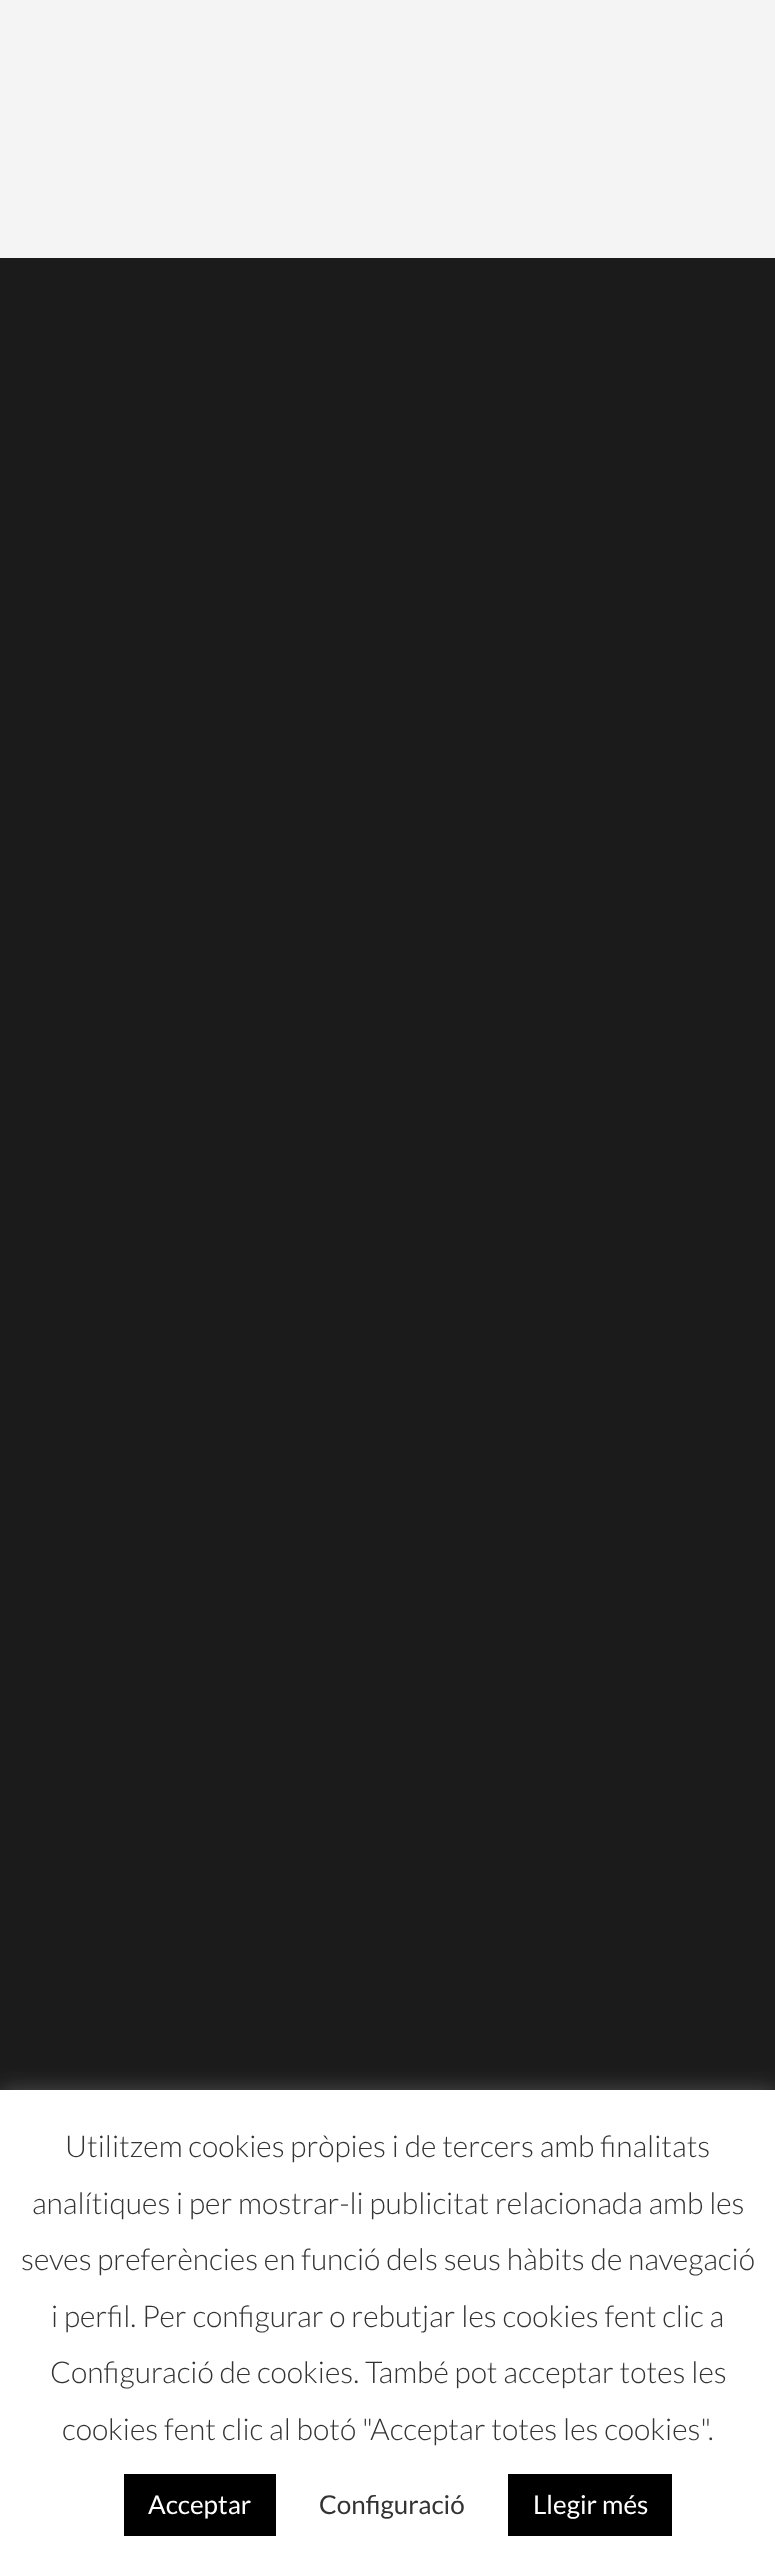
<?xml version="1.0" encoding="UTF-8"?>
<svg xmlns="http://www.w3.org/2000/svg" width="775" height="2569">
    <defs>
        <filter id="blur1" x="-50%" y="-200%" width="200%" height="500%"><feGaussianBlur stdDeviation="10"/></filter>
    </defs>
    <rect width="100%" height="100%" fill="#F4F4F4"/>
    <rect x="0" y="258" width="775" height="1832" fill="#1B1B1B"/>
    <rect x="0" y="2088" width="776" height="480" fill="#ACABAB" fill-opacity="0.3" filter="url(#blur1)"/>
    <rect x="0" y="2090" width="775" height="479" fill="#FFFFFF"/>
    <text x="65" y="2157" font-family="Lato" font-size="30" font-weight="300" fill="#333333">Utilitzem cookies pròpies i de tercers amb finalitats</text>
    <text x="32" y="2214" font-family="Lato" font-size="30" font-weight="300" fill="#333333">analítiques i per mostrar-li publicitat relacionada amb les</text>
    <text x="21" y="2270" font-family="Lato" font-size="30" font-weight="300" fill="#333333">seves preferències en funció dels seus hàbits de navegació</text>
    <text x="51" y="2327" font-family="Lato" font-size="30" font-weight="300" fill="#333333">i perfil. Per configurar o rebutjar les cookies fent clic a</text>
    <text x="50" y="2383" font-family="Lato" font-size="30" font-weight="300" fill="#333333">Configuració de cookies. També pot acceptar totes les</text>
    <text x="62" y="2440" font-family="Lato" font-size="30" font-weight="300" fill="#333333">cookies fent clic al botó "Acceptar totes les cookies".</text>
    <rect x="124" y="2474" width="152" height="62" fill="#000000"/>
    <text x="148" y="2514" font-family="Lato" font-size="26" fill="#FFFFFF">Acceptar</text>
    <text x="319" y="2514" font-family="Lato" font-size="26" fill="#333333">Configuració</text>
    <rect x="508" y="2474" width="164" height="62" fill="#000000"/>
    <text x="533" y="2514" font-family="Lato" font-size="26" fill="#FFFFFF">Llegir més</text>
</svg>
